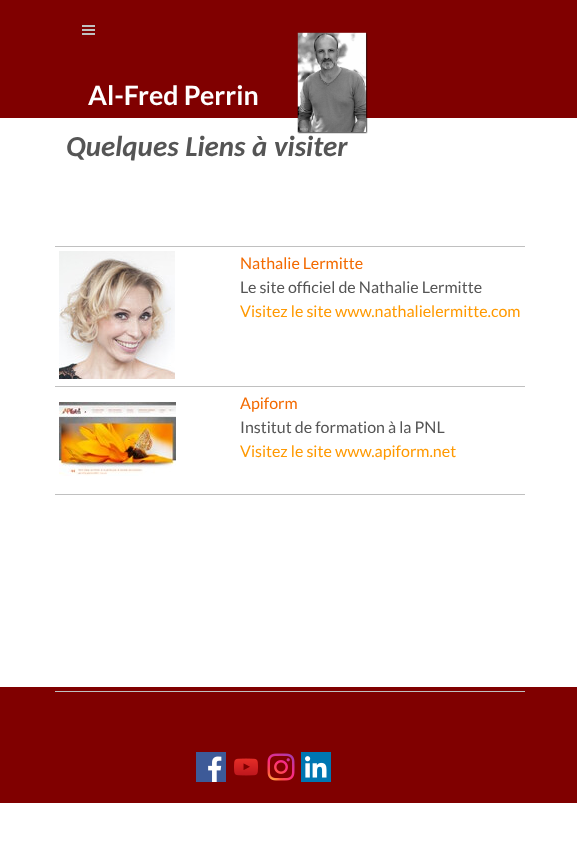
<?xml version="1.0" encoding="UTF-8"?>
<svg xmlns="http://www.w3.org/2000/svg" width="577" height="859">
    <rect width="100%" height="100%" fill="#FFFFFF"/>
    <rect x="0" y="0" width="577" height="118" fill="#800000"/>
    <rect x="82" y="25" width="13" height="2" fill="#C0C0C0"/>
    <rect x="82" y="29" width="13" height="2" fill="#C0C0C0"/>
    <rect x="82" y="33" width="13" height="2" fill="#C0C0C0"/>
    <text x="88" y="105" font-family="Lato" font-size="26.75" font-weight="700" fill="#FFFFFF">Al-Fred Perrin</text>
    <image x="297" y="32" width="71" height="102" href="img_01.png"/>
    <text x="66" y="156" font-family="Carlito" font-size="29" font-weight="700" font-style="italic" fill="#555555">Quelques Liens à visiter</text>
    <image x="59" y="251" width="116" height="128" href="img_02.png"/>
    <rect x="55" y="246" width="470" height="1" fill="#C0C0C0"/>
    <text x="240" y="269" font-family="Lato" font-size="16" fill="#F36A00">Nathalie Lermitte</text>
    <text x="240" y="293" font-family="Lato" font-size="16" fill="#555555">Le site officiel de Nathalie Lermitte</text>
    <text x="240" y="317" font-family="Lato" font-size="16" fill="#FF9900">Visitez le site www.nathalielermitte.com</text>
    <image x="59" y="402" width="117" height="74" href="img_03.png"/>
    <rect x="55" y="386" width="470" height="1" fill="#C0C0C0"/>
    <text x="240" y="409" font-family="Lato" font-size="16" fill="#F36A00">Apiform</text>
    <text x="240" y="433" font-family="Lato" font-size="16" fill="#555555">Institut de formation à la PNL</text>
    <text x="240" y="457" font-family="Lato" font-size="16" fill="#FF9900">Visitez le site www.apiform.net</text>
    <rect x="55" y="494" width="470" height="1" fill="#C0C0C0"/>
    <rect x="0" y="687" width="577" height="116" fill="#800000"/>
    <rect x="55" y="691" width="470" height="1" fill="#C0C0C0"/>
    <image x="196" y="752" width="30" height="30" href="img_04.png"/>
    <image x="234" y="758" width="24" height="18" href="img_05.png"/>
    <image x="267" y="753" width="28" height="28" href="img_06.png"/>
    <image x="301" y="752" width="30" height="30" href="img_07.png"/>
</svg>
